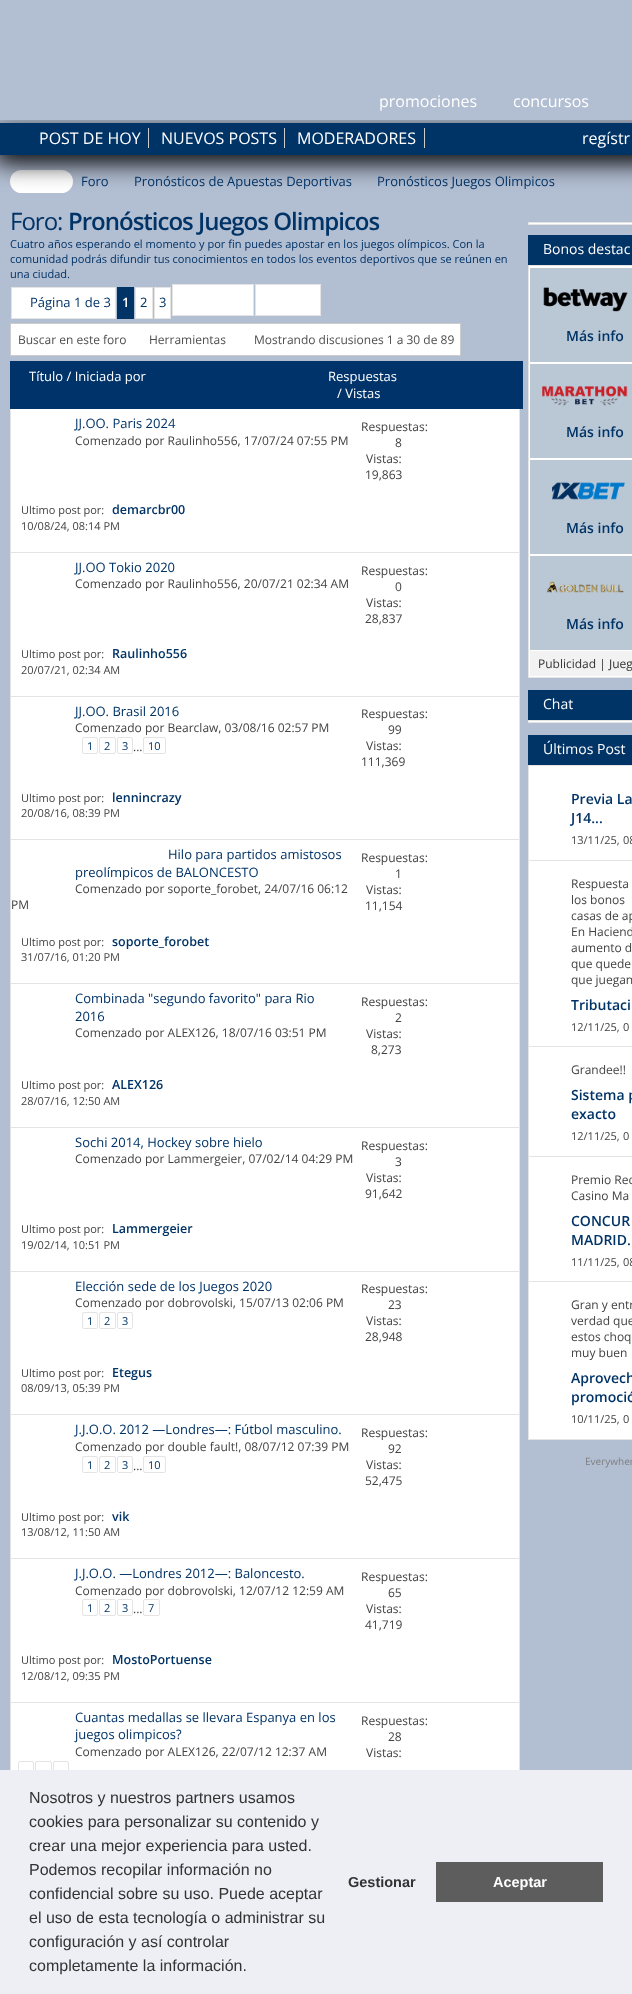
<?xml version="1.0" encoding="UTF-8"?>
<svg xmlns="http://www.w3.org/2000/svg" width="632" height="1994">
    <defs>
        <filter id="blur1" x="-50%" y="-200%" width="200%" height="500%"><feGaussianBlur stdDeviation="12.5"/></filter>
    </defs>
    <rect width="100%" height="100%" fill="#B2BED2"/>
    <rect x="10" y="170" width="63" height="23" rx="11.5" fill="#FFFFFF"/>
    <rect x="-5" y="131" width="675" height="32" fill="#000000" filter="url(#blur1)"/>
    <rect x="0" y="123" width="632" height="32" fill="#003366"/>
    <rect x="148" y="128" width="1" height="20" fill="#CCCCCC"/>
    <text x="39" y="144" font-family="Open Sans" font-size="16" fill="#FFFFFF">POST DE HOY</text>
    <rect x="284" y="128" width="1" height="20" fill="#CCCCCC"/>
    <text x="161" y="144" font-family="Open Sans" font-size="16" fill="#FFFFFF">NUEVOS POSTS</text>
    <rect x="424" y="128" width="1" height="20" fill="#CCCCCC"/>
    <text x="297" y="144" font-family="Open Sans" font-size="16" fill="#FFFFFF">MODERADORES</text>
    <rect x="0" y="103" width="632" height="17" fill="#B2BED2"/>
    <text x="379" y="107" font-family="Open Sans" font-size="16" fill="#FFFFFF">promociones</text>
    <text x="513" y="107" font-family="Open Sans" font-size="16" fill="#FFFFFF">concursos</text>
    <text x="582" y="144" font-family="Open Sans" font-size="16" fill="#FFFFFF">regístr</text>
    <text x="81" y="186" font-family="Open Sans" font-size="13" fill="#003366">Foro</text>
    <text x="134" y="186" font-family="Open Sans" font-size="13" fill="#003366">Pronósticos de Apuestas Deportivas</text>
    <text x="377" y="186" font-family="Open Sans" font-size="13" fill="#003366">Pronósticos Juegos Olimpicos</text>
    <text x="10" y="230" font-family="Open Sans" font-size="24" letter-spacing="-1" fill="#003366">Foro:</text>
    <text x="68" y="230" font-family="Open Sans" font-size="24" font-weight="600" letter-spacing="-1" fill="#003366">Pronósticos Juegos Olimpicos</text>
    <text font-family="Open Sans" font-size="11.05" fill="#003366">
        <tspan x="10" y="248">Cuatro años esperando el momento y por fin puedes apostar en los juegos olímpicos. Con la</tspan>
        <tspan x="10" y="263">comunidad podrás difundir tus conocimientos en todos los eventos deportivos que se reúnen en</tspan>
        <tspan x="10" y="278">una ciudad.</tspan>
    </text>
    <rect x="11.5" y="287.5" width="104" height="31" fill="#FFFFFF" stroke="#E4E4E4"/>
    <text x="30" y="307" font-family="Open Sans" font-size="13" fill="#003366">Página 1 de 3</text>
    <rect x="117" y="287" width="17" height="32" fill="#003366"/>
    <text x="122" y="307" font-family="Open Sans" font-size="13" font-weight="600" fill="#FFFFFF">1</text>
    <rect x="135.5" y="287.5" width="17" height="31" fill="#FFFFFF" stroke="#E4E4E4"/>
    <text x="140" y="307" font-family="Open Sans" font-size="13" fill="#003366">2</text>
    <rect x="154.5" y="287.5" width="16" height="31" fill="#FFFFFF" stroke="#E4E4E4"/>
    <text x="159" y="307" font-family="Open Sans" font-size="13" fill="#003366">3</text>
    <rect x="172.5" y="284.5" width="81" height="31" fill="#FFFFFF" stroke="#E4E4E4"/>
    <rect x="255.5" y="284.5" width="65" height="31" fill="#FFFFFF" stroke="#E4E4E4"/>
    <rect x="10.5" y="323.5" width="450" height="32" fill="#FFFFFF" stroke="#CCCCCC"/>
    <text x="18" y="344" font-family="Open Sans" font-size="12" fill="#4E4E4E">Buscar en este foro</text>
    <text x="149" y="344" font-family="Open Sans" font-size="12" fill="#4E4E4E">Herramientas</text>
    <text x="254" y="344" font-family="Open Sans" font-size="12" fill="#4E4E4E">Mostrando discusiones 1 a 30 de 89</text>
    <rect x="10" y="361" width="513" height="48" fill="#00336A"/>
    <text x="29" y="381" font-family="Open Sans" font-size="13" fill="#FFFFFF">Título / Iniciada por</text>
    <text x="328" y="381" font-family="Open Sans" font-size="13" fill="#FFFFFF">Respuestas</text>
    <text x="337" y="398" font-family="Open Sans" font-size="13" fill="#FFFFFF">/ Vistas</text>
    <rect x="11" y="409" width="508" height="143" fill="#FFFFFF"/>
    <rect x="519" y="409" width="1" height="1361" fill="#E4E4E4"/>
    <rect x="10" y="552" width="510" height="1" fill="#E4E4E4"/>
    <rect x="10" y="409" width="1" height="144" fill="#E4E4E4"/>
    <text x="75" y="428" font-family="Open Sans" font-size="13" fill="#003366">JJ.OO. Paris 2024</text>
    <text x="75" y="445" font-family="Open Sans" font-size="12" fill="#424242">Comenzado por Raulinho556, 17/07/24 07:55 PM</text>
    <text x="361" y="431" font-family="Open Sans" font-size="12" fill="#424242">Respuestas:</text>
    <text x="395" y="447" font-family="Open Sans" font-size="12" fill="#424242">8</text>
    <text x="366" y="463" font-family="Open Sans" font-size="12" fill="#424242">Vistas:</text>
    <text x="365" y="479" font-family="Open Sans" font-size="12" fill="#424242">19,863</text>
    <text x="21" y="514" font-family="Open Sans" font-size="11" fill="#424242">Ultimo post por:</text>
    <text x="112" y="514" font-family="Open Sans" font-size="12.5" font-weight="600" fill="#003366">demarcbr00</text>
    <text x="21" y="530" font-family="Open Sans" font-size="11" fill="#424242">10/08/24, 08:14 PM</text>
    <rect x="11" y="553" width="508" height="143" fill="#FFFFFF"/>
    <rect x="10" y="696" width="510" height="1" fill="#E4E4E4"/>
    <rect x="10" y="553" width="1" height="144" fill="#E4E4E4"/>
    <text x="75" y="572" font-family="Open Sans" font-size="13" fill="#003366">JJ.OO Tokio 2020</text>
    <text x="75" y="588" font-family="Open Sans" font-size="12" fill="#424242">Comenzado por Raulinho556, 20/07/21 02:34 AM</text>
    <text x="361" y="575" font-family="Open Sans" font-size="12" fill="#424242">Respuestas:</text>
    <text x="395" y="591" font-family="Open Sans" font-size="12" fill="#424242">0</text>
    <text x="366" y="607" font-family="Open Sans" font-size="12" fill="#424242">Vistas:</text>
    <text x="365" y="623" font-family="Open Sans" font-size="12" fill="#424242">28,837</text>
    <text x="21" y="658" font-family="Open Sans" font-size="11" fill="#424242">Ultimo post por:</text>
    <text x="112" y="658" font-family="Open Sans" font-size="12.5" font-weight="600" fill="#003366">Raulinho556</text>
    <text x="21" y="674" font-family="Open Sans" font-size="11" fill="#424242">20/07/21, 02:34 AM</text>
    <rect x="11" y="697" width="508" height="142" fill="#FFFFFF"/>
    <rect x="10" y="839" width="510" height="1" fill="#E4E4E4"/>
    <rect x="10" y="697" width="1" height="143" fill="#E4E4E4"/>
    <text x="75" y="716" font-family="Open Sans" font-size="13" fill="#003366">JJ.OO. Brasil 2016</text>
    <text x="75" y="732" font-family="Open Sans" font-size="12" fill="#424242">Comenzado por Bearclaw, 03/08/16 02:57 PM</text>
    <rect x="82.5" y="737.5" width="15" height="16" rx="1.5" fill="none" stroke="#E4E4E4"/>
    <text x="87" y="750" font-family="Open Sans" font-size="11" fill="#003366">1</text>
    <rect x="99.5" y="737.5" width="16" height="16" rx="1.5" fill="none" stroke="#E4E4E4"/>
    <text x="104" y="750" font-family="Open Sans" font-size="11" fill="#003366">2</text>
    <rect x="117.5" y="737.5" width="15" height="16" rx="1.5" fill="none" stroke="#E4E4E4"/>
    <text x="122" y="750" font-family="Open Sans" font-size="11" fill="#003366">3</text>
    <text x="133" y="751" font-family="Open Sans" font-size="12" fill="#424242">...</text>
    <rect x="143.5" y="737.5" width="22" height="16" rx="1.5" fill="none" stroke="#E4E4E4"/>
    <text x="148" y="750" font-family="Open Sans" font-size="11" fill="#003366">10</text>
    <text x="361" y="718" font-family="Open Sans" font-size="12" fill="#424242">Respuestas:</text>
    <text x="388" y="734" font-family="Open Sans" font-size="12" fill="#424242">99</text>
    <text x="366" y="750" font-family="Open Sans" font-size="12" fill="#424242">Vistas:</text>
    <text x="361" y="766" font-family="Open Sans" font-size="12" fill="#424242">111,369</text>
    <text x="21" y="802" font-family="Open Sans" font-size="11" fill="#424242">Ultimo post por:</text>
    <text x="112" y="802" font-family="Open Sans" font-size="12.5" font-weight="600" fill="#003366">lennincrazy</text>
    <text x="21" y="817" font-family="Open Sans" font-size="11" fill="#424242">20/08/16, 08:39 PM</text>
    <rect x="11" y="840" width="508" height="143" fill="#FFFFFF"/>
    <rect x="10" y="983" width="510" height="1" fill="#E4E4E4"/>
    <rect x="10" y="840" width="1" height="144" fill="#E4E4E4"/>
    <text x="168" y="859" font-family="Open Sans" font-size="13" fill="#003366">Hilo para partidos amistosos</text>
    <text x="75" y="877" font-family="Open Sans" font-size="13" fill="#003366">preolímpicos de BALONCESTO</text>
    <text x="75" y="893" font-family="Open Sans" font-size="12" fill="#424242">Comenzado por soporte_forobet, 24/07/16 06:12</text>
    <text x="11" y="909" font-family="Open Sans" font-size="12" fill="#424242">PM</text>
    <text x="361" y="862" font-family="Open Sans" font-size="12" fill="#424242">Respuestas:</text>
    <text x="395" y="878" font-family="Open Sans" font-size="12" fill="#424242">1</text>
    <text x="366" y="894" font-family="Open Sans" font-size="12" fill="#424242">Vistas:</text>
    <text x="365" y="910" font-family="Open Sans" font-size="12" fill="#424242">11,154</text>
    <text x="21" y="946" font-family="Open Sans" font-size="11" fill="#424242">Ultimo post por:</text>
    <text x="112" y="946" font-family="Open Sans" font-size="12.5" font-weight="600" fill="#003366">soporte_forobet</text>
    <text x="21" y="961" font-family="Open Sans" font-size="11" fill="#424242">31/07/16, 01:20 PM</text>
    <rect x="11" y="984" width="508" height="143" fill="#FFFFFF"/>
    <rect x="10" y="1127" width="510" height="1" fill="#E4E4E4"/>
    <rect x="10" y="984" width="1" height="144" fill="#E4E4E4"/>
    <text font-family="Open Sans" font-size="13" fill="#003366">
        <tspan x="75" y="1003">Combinada "segundo favorito" para Rio</tspan>
        <tspan x="75" y="1021">2016</tspan>
    </text>
    <text x="75" y="1037" font-family="Open Sans" font-size="12" fill="#424242">Comenzado por ALEX126, 18/07/16 03:51 PM</text>
    <text x="361" y="1006" font-family="Open Sans" font-size="12" fill="#424242">Respuestas:</text>
    <text x="395" y="1022" font-family="Open Sans" font-size="12" fill="#424242">2</text>
    <text x="366" y="1038" font-family="Open Sans" font-size="12" fill="#424242">Vistas:</text>
    <text x="371" y="1054" font-family="Open Sans" font-size="12" fill="#424242">8,273</text>
    <text x="21" y="1089" font-family="Open Sans" font-size="11" fill="#424242">Ultimo post por:</text>
    <text x="112" y="1089" font-family="Open Sans" font-size="12.5" font-weight="600" fill="#003366">ALEX126</text>
    <text x="21" y="1105" font-family="Open Sans" font-size="11" fill="#424242">28/07/16, 12:50 AM</text>
    <rect x="11" y="1128" width="508" height="143" fill="#FFFFFF"/>
    <rect x="10" y="1271" width="510" height="1" fill="#E4E4E4"/>
    <rect x="10" y="1128" width="1" height="144" fill="#E4E4E4"/>
    <text x="75" y="1147" font-family="Open Sans" font-size="13" fill="#003366">Sochi 2014, Hockey sobre hielo</text>
    <text x="75" y="1163" font-family="Open Sans" font-size="12" fill="#424242">Comenzado por Lammergeier, 07/02/14 04:29 PM</text>
    <text x="361" y="1150" font-family="Open Sans" font-size="12" fill="#424242">Respuestas:</text>
    <text x="395" y="1166" font-family="Open Sans" font-size="12" fill="#424242">3</text>
    <text x="366" y="1182" font-family="Open Sans" font-size="12" fill="#424242">Vistas:</text>
    <text x="365" y="1198" font-family="Open Sans" font-size="12" fill="#424242">91,642</text>
    <text x="21" y="1233" font-family="Open Sans" font-size="11" fill="#424242">Ultimo post por:</text>
    <text x="112" y="1233" font-family="Open Sans" font-size="12.5" font-weight="600" fill="#003366">Lammergeier</text>
    <text x="21" y="1249" font-family="Open Sans" font-size="11" fill="#424242">19/02/14, 10:51 PM</text>
    <rect x="11" y="1272" width="508" height="142" fill="#FFFFFF"/>
    <rect x="10" y="1414" width="510" height="1" fill="#E4E4E4"/>
    <rect x="10" y="1272" width="1" height="143" fill="#E4E4E4"/>
    <text x="75" y="1291" font-family="Open Sans" font-size="13" fill="#003366">Elección sede de los Juegos 2020</text>
    <text x="75" y="1307" font-family="Open Sans" font-size="12" fill="#424242">Comenzado por dobrovolski, 15/07/13 02:06 PM</text>
    <rect x="82.5" y="1312.5" width="15" height="16" rx="1.5" fill="none" stroke="#E4E4E4"/>
    <text x="87" y="1325" font-family="Open Sans" font-size="11" fill="#003366">1</text>
    <rect x="99.5" y="1312.5" width="16" height="16" rx="1.5" fill="none" stroke="#E4E4E4"/>
    <text x="104" y="1325" font-family="Open Sans" font-size="11" fill="#003366">2</text>
    <rect x="117.5" y="1312.5" width="15" height="16" rx="1.5" fill="none" stroke="#E4E4E4"/>
    <text x="122" y="1325" font-family="Open Sans" font-size="11" fill="#003366">3</text>
    <text x="361" y="1293" font-family="Open Sans" font-size="12" fill="#424242">Respuestas:</text>
    <text x="388" y="1309" font-family="Open Sans" font-size="12" fill="#424242">23</text>
    <text x="366" y="1325" font-family="Open Sans" font-size="12" fill="#424242">Vistas:</text>
    <text x="365" y="1341" font-family="Open Sans" font-size="12" fill="#424242">28,948</text>
    <text x="21" y="1377" font-family="Open Sans" font-size="11" fill="#424242">Ultimo post por:</text>
    <text x="112" y="1377" font-family="Open Sans" font-size="12.5" font-weight="600" fill="#003366">Etegus</text>
    <text x="21" y="1392" font-family="Open Sans" font-size="11" fill="#424242">08/09/13, 05:39 PM</text>
    <rect x="11" y="1415" width="508" height="143" fill="#FFFFFF"/>
    <rect x="10" y="1558" width="510" height="1" fill="#E4E4E4"/>
    <rect x="10" y="1415" width="1" height="144" fill="#E4E4E4"/>
    <text x="75" y="1434" font-family="Open Sans" font-size="13" fill="#003366">J.J.O.O. 2012 —Londres—: Fútbol masculino.</text>
    <text x="75" y="1451" font-family="Open Sans" font-size="12" fill="#424242">Comenzado por double fault!, 08/07/12 07:39 PM</text>
    <rect x="82.5" y="1456.5" width="15" height="16" rx="1.5" fill="none" stroke="#E4E4E4"/>
    <text x="87" y="1469" font-family="Open Sans" font-size="11" fill="#003366">1</text>
    <rect x="99.5" y="1456.5" width="16" height="16" rx="1.5" fill="none" stroke="#E4E4E4"/>
    <text x="104" y="1469" font-family="Open Sans" font-size="11" fill="#003366">2</text>
    <rect x="117.5" y="1456.5" width="15" height="16" rx="1.5" fill="none" stroke="#E4E4E4"/>
    <text x="122" y="1469" font-family="Open Sans" font-size="11" fill="#003366">3</text>
    <text x="133" y="1470" font-family="Open Sans" font-size="12" fill="#424242">...</text>
    <rect x="143.5" y="1456.5" width="22" height="16" rx="1.5" fill="none" stroke="#E4E4E4"/>
    <text x="148" y="1469" font-family="Open Sans" font-size="11" fill="#003366">10</text>
    <text x="361" y="1437" font-family="Open Sans" font-size="12" fill="#424242">Respuestas:</text>
    <text x="388" y="1453" font-family="Open Sans" font-size="12" fill="#424242">92</text>
    <text x="366" y="1469" font-family="Open Sans" font-size="12" fill="#424242">Vistas:</text>
    <text x="365" y="1485" font-family="Open Sans" font-size="12" fill="#424242">52,475</text>
    <text x="21" y="1521" font-family="Open Sans" font-size="11" fill="#424242">Ultimo post por:</text>
    <text x="112" y="1521" font-family="Open Sans" font-size="12.5" font-weight="600" fill="#003366">vik</text>
    <text x="21" y="1536" font-family="Open Sans" font-size="11" fill="#424242">13/08/12, 11:50 AM</text>
    <rect x="11" y="1559" width="508" height="143" fill="#FFFFFF"/>
    <rect x="10" y="1702" width="510" height="1" fill="#E4E4E4"/>
    <rect x="10" y="1559" width="1" height="211" fill="#E4E4E4"/>
    <text x="75" y="1578" font-family="Open Sans" font-size="13" fill="#003366">J.J.O.O. —Londres 2012—: Baloncesto.</text>
    <text x="75" y="1595" font-family="Open Sans" font-size="12" fill="#424242">Comenzado por dobrovolski, 12/07/12 12:59 AM</text>
    <rect x="82.5" y="1599.5" width="15" height="16" rx="1.5" fill="none" stroke="#E4E4E4"/>
    <text x="87" y="1612" font-family="Open Sans" font-size="11" fill="#003366">1</text>
    <rect x="99.5" y="1599.5" width="16" height="16" rx="1.5" fill="none" stroke="#E4E4E4"/>
    <text x="104" y="1612" font-family="Open Sans" font-size="11" fill="#003366">2</text>
    <rect x="117.5" y="1599.5" width="15" height="16" rx="1.5" fill="none" stroke="#E4E4E4"/>
    <text x="122" y="1612" font-family="Open Sans" font-size="11" fill="#003366">3</text>
    <rect x="143.5" y="1599.5" width="16" height="16" rx="1.5" fill="none" stroke="#E4E4E4"/>
    <text x="148" y="1612" font-family="Open Sans" font-size="11" fill="#003366">7</text>
    <text x="133" y="1613" font-family="Open Sans" font-size="12" fill="#424242">...</text>
    <text x="361" y="1581" font-family="Open Sans" font-size="12" fill="#424242">Respuestas:</text>
    <text x="388" y="1597" font-family="Open Sans" font-size="12" fill="#424242">65</text>
    <text x="366" y="1613" font-family="Open Sans" font-size="12" fill="#424242">Vistas:</text>
    <text x="365" y="1629" font-family="Open Sans" font-size="12" fill="#424242">41,719</text>
    <text x="21" y="1664" font-family="Open Sans" font-size="11" fill="#424242">Ultimo post por:</text>
    <text x="112" y="1664" font-family="Open Sans" font-size="12.5" font-weight="600" fill="#003366">MostoPortuense</text>
    <text x="21" y="1680" font-family="Open Sans" font-size="11" fill="#424242">12/08/12, 09:35 PM</text>
    <rect x="11" y="1703" width="508" height="67" fill="#FFFFFF"/>
    <text font-family="Open Sans" font-size="13" fill="#003366">
        <tspan x="75" y="1722">Cuantas medallas se llevara Espanya en los</tspan>
        <tspan x="75" y="1739">juegos olimpicos?</tspan>
    </text>
    <text x="75" y="1756" font-family="Open Sans" font-size="12" fill="#424242">Comenzado por ALEX126, 22/07/12 12:37 AM</text>
    <rect x="18.5" y="1761.5" width="15" height="16" rx="1.5" fill="none" stroke="#E4E4E4"/>
    <rect x="35.5" y="1761.5" width="16" height="16" rx="1.5" fill="none" stroke="#E4E4E4"/>
    <rect x="53.5" y="1761.5" width="15" height="16" rx="1.5" fill="none" stroke="#E4E4E4"/>
    <text x="361" y="1725" font-family="Open Sans" font-size="12" fill="#424242">Respuestas:</text>
    <text x="388" y="1741" font-family="Open Sans" font-size="12" fill="#424242">28</text>
    <text x="366" y="1757" font-family="Open Sans" font-size="12" fill="#424242">Vistas:</text>
    <rect x="528.5" y="222.5" width="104" height="2" fill="#FFFFFF" stroke="#E4E4E4"/>
    <rect x="528" y="235" width="104" height="30" fill="#003366"/>
    <text x="543" y="254" font-family="Open Sans" font-size="14" fill="#FFFFFF">Bonos destac</text>
    <rect x="529" y="266" width="103" height="385" fill="#FFFFFF"/>
    <rect x="528.5" y="265.5" width="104" height="412" fill="none" stroke="#E4E4E4"/>
    <rect x="530" y="268" width="102" height="94" fill="#BAC8D6"/>
    <image x="543" y="287" width="85" height="25" href="img_01.png"/>
    <text x="566" y="341" font-family="Open Sans" font-size="14" font-weight="600" fill="#003366">Más info</text>
    <rect x="530" y="364" width="102" height="94" fill="#BAC8D6"/>
    <image x="542" y="386" width="86" height="20" href="img_02.png"/>
    <text x="566" y="437" font-family="Open Sans" font-size="14" font-weight="600" fill="#003366">Más info</text>
    <rect x="530" y="460" width="102" height="94" fill="#BAC8D6"/>
    <image x="552" y="482" width="73" height="18" href="img_03.png"/>
    <text x="566" y="533" font-family="Open Sans" font-size="14" font-weight="600" fill="#003366">Más info</text>
    <rect x="530" y="556" width="102" height="94" fill="#BAC8D6"/>
    <image x="546" y="580" width="78" height="13" href="img_04.png"/>
    <text x="566" y="629" font-family="Open Sans" font-size="14" font-weight="600" fill="#003366">Más info</text>
    <rect x="530" y="651" width="102" height="25" fill="#F2F2F2"/>
    <rect x="529" y="676" width="103" height="1" fill="#FFFFFF"/>
    <rect x="529" y="651" width="1" height="26" fill="#FFFFFF"/>
    <text x="538" y="668" font-family="Open Sans" font-size="12" fill="#333333">Publicidad | Jueg</text>
    <rect x="528" y="690" width="104" height="30" fill="#003366"/>
    <text x="543" y="709" font-family="Open Sans" font-size="14" fill="#FFFFFF">Chat</text>
    <rect x="528.5" y="720.5" width="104" height="2" fill="#FFFFFF" stroke="#E4E4E4"/>
    <rect x="528" y="735" width="104" height="30" fill="#003366"/>
    <text x="543" y="754" font-family="Open Sans" font-size="14" fill="#FFFFFF">Últimos Post</text>
    <rect x="528.5" y="765.5" width="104" height="674" fill="#FFFFFF" stroke="#E4E4E4"/>
    <text font-family="Open Sans" font-size="14" font-weight="600" fill="#003366">
        <tspan x="571" y="804">Previa La</tspan>
        <tspan x="571" y="823">J14...</tspan>
    </text>
    <text x="571" y="844" font-family="Open Sans" font-size="11" fill="#424242">13/11/25,</text>
    <text x="623" y="844" font-family="Open Sans" font-size="11" fill="#424242">08</text>
    <rect x="529" y="860" width="103" height="1" fill="#E4E4E4"/>
    <text font-family="Open Sans" font-size="12" fill="#424242">
        <tspan x="571" y="888">Respuesta</tspan>
        <tspan x="571" y="904">los bonos</tspan>
        <tspan x="571" y="920">casas de ap</tspan>
        <tspan x="571" y="936">En Haciend</tspan>
        <tspan x="571" y="952">aumento d</tspan>
        <tspan x="571" y="968">que quede</tspan>
        <tspan x="571" y="984">que juegan</tspan>
    </text>
    <text x="571" y="1010" font-family="Open Sans" font-size="14" font-weight="600" fill="#003366">Tributaci</text>
    <text x="571" y="1031" font-family="Open Sans" font-size="11" fill="#424242">12/11/25,</text>
    <text x="623" y="1031" font-family="Open Sans" font-size="11" fill="#424242">0</text>
    <rect x="529" y="1046" width="103" height="1" fill="#E4E4E4"/>
    <text x="571" y="1074" font-family="Open Sans" font-size="12" fill="#424242">Grandee!!</text>
    <text font-family="Open Sans" font-size="14" font-weight="600" fill="#003366">
        <tspan x="571" y="1100">Sistema p</tspan>
        <tspan x="571" y="1119">exacto</tspan>
    </text>
    <text x="571" y="1140" font-family="Open Sans" font-size="11" fill="#424242">12/11/25,</text>
    <text x="623" y="1140" font-family="Open Sans" font-size="11" fill="#424242">0</text>
    <rect x="529" y="1156" width="103" height="1" fill="#E4E4E4"/>
    <text font-family="Open Sans" font-size="12" fill="#424242">
        <tspan x="571" y="1184">Premio Rec</tspan>
        <tspan x="571" y="1200">Casino Ma</tspan>
    </text>
    <text font-family="Open Sans" font-size="14" font-weight="600" fill="#003366">
        <tspan x="571" y="1226">CONCUR</tspan>
        <tspan x="571" y="1245">MADRID.</tspan>
    </text>
    <text x="571" y="1266" font-family="Open Sans" font-size="11" fill="#424242">11/11/25,</text>
    <text x="623" y="1266" font-family="Open Sans" font-size="11" fill="#424242">08</text>
    <rect x="529" y="1281" width="103" height="1" fill="#E4E4E4"/>
    <text font-family="Open Sans" font-size="12" fill="#424242">
        <tspan x="571" y="1309">Gran y entr</tspan>
        <tspan x="571" y="1325">verdad que</tspan>
        <tspan x="571" y="1341">estos choq</tspan>
        <tspan x="571" y="1357">muy buen</tspan>
    </text>
    <text font-family="Open Sans" font-size="14" font-weight="600" fill="#003366">
        <tspan x="571" y="1383">Aprovech</tspan>
        <tspan x="571" y="1402">promoció</tspan>
    </text>
    <text x="571" y="1423" font-family="Open Sans" font-size="11" fill="#424242">10/11/25,</text>
    <text x="623" y="1423" font-family="Open Sans" font-size="11" fill="#424242">0</text>
    <text x="585" y="1465" font-family="Open Sans" font-size="10" fill="#808080">Everywher</text>
    <rect x="0" y="1770" width="632" height="224" fill="#EDEFF5"/>
    <text font-family="Liberation Sans" font-size="16" fill="#333333">
        <tspan x="29" y="1803">Nosotros y nuestros partners usamos</tspan>
        <tspan x="29" y="1827">cookies para personalizar su contenido y</tspan>
        <tspan x="29" y="1851">crear una mejor experiencia para usted.</tspan>
        <tspan x="29" y="1875">Podemos recopilar información no</tspan>
        <tspan x="29" y="1899">confidencial sobre su uso. Puede aceptar</tspan>
        <tspan x="29" y="1923">el uso de esta tecnología o administrar su</tspan>
        <tspan x="29" y="1947">configuración y así controlar</tspan>
        <tspan x="29" y="1971">completamente la información.</tspan>
    </text>
    <text x="348" y="1887" font-family="Liberation Sans" font-size="14.5" font-weight="700" fill="#333333">Gestionar</text>
    <rect x="436" y="1862" width="167" height="40" fill="#5D5D5D"/>
    <text x="493" y="1887" font-family="Liberation Sans" font-size="14.5" font-weight="700" fill="#FFFFFF">Aceptar</text>
</svg>
